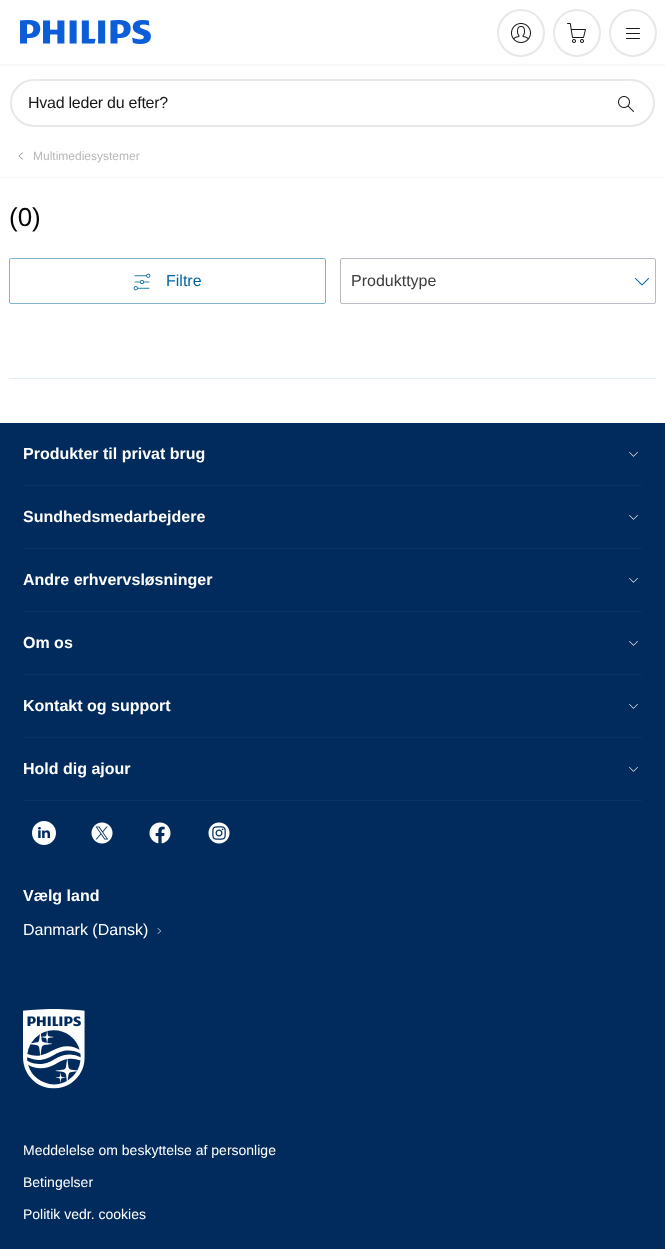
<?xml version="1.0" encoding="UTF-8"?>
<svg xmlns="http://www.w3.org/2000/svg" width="665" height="1249">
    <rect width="100%" height="100%" fill="#FFFFFF"/>
    <image x="20" y="20" width="131" height="24" href="img_01.png"/>
    <rect x="0" y="64" width="665" height="2" fill="#F7F7F7"/>
    <circle cx="521" cy="33" r="23" fill="none" stroke="#E8E8E8" stroke-width="2"/>
    <image x="511" y="23" width="20" height="20" href="img_02.png"/>
    <circle cx="577" cy="33" r="23" fill="none" stroke="#E8E8E8" stroke-width="2"/>
    <image x="567" y="23" width="19" height="20" href="img_03.png"/>
    <circle cx="633" cy="33" r="23" fill="none" stroke="#E8E8E8" stroke-width="2"/>
    <image x="626" y="28" width="14" height="11" href="img_04.png"/>
    <rect x="11" y="80" width="643" height="46" rx="23" fill="none" stroke="#E8E8E8" stroke-width="2"/>
    <text x="28" y="108" font-family="Liberation Sans" font-size="16" letter-spacing="-0.25" fill="#171717">Hvad leder du efter?</text>
    <image x="618" y="96" width="16" height="16" href="img_05.png"/>
    <rect x="0" y="177" width="665" height="1" fill="#F7F7F7"/>
    <image x="18" y="152" width="5" height="8" href="img_06.png"/>
    <text x="33" y="160" font-family="Liberation Sans" font-size="12" fill="#B8B8B8">Multimediesystemer</text>
    <text x="9" y="226" font-family="Liberation Sans" font-size="26" fill="#050505">(0)</text>
    <rect x="9.5" y="258.5" width="316" height="45" rx="1.5" fill="none" stroke="#80B3D0"/>
    <image x="133" y="273" width="18" height="18" href="img_07.png"/>
    <text x="166" y="286" font-family="Liberation Sans" font-size="16" fill="#0066A1">Filtre</text>
    <rect x="340.5" y="258.5" width="315" height="45" rx="1.5" fill="none" stroke="#B9BBC7"/>
    <text x="351" y="286" font-family="Liberation Sans" font-size="16" fill="#3C3C3C">Produkttype</text>
    <image x="635" y="278" width="14" height="8" href="img_08.png"/>
    <rect x="9" y="378" width="647" height="1" fill="#DFEDF0"/>
    <rect x="0" y="423" width="665" height="826" fill="#002B5C"/>
    <rect x="23" y="485" width="619" height="1" fill="#0A3363"/>
    <text x="23" y="459" font-family="Liberation Sans" font-size="16" font-weight="700" fill="#FFFFFF">Produkter til privat brug</text>
    <image x="629" y="452" width="9" height="5" href="img_09.png"/>
    <rect x="23" y="548" width="619" height="1" fill="#0A3363"/>
    <text x="23" y="522" font-family="Liberation Sans" font-size="16" font-weight="700" fill="#FFFFFF">Sundhedsmedarbejdere</text>
    <image x="629" y="515" width="9" height="5" href="img_09.png"/>
    <rect x="23" y="611" width="619" height="1" fill="#0A3363"/>
    <text x="23" y="585" font-family="Liberation Sans" font-size="16" font-weight="700" fill="#FFFFFF">Andre erhvervsløsninger</text>
    <image x="629" y="578" width="9" height="5" href="img_09.png"/>
    <rect x="23" y="674" width="619" height="1" fill="#0A3363"/>
    <text x="23" y="648" font-family="Liberation Sans" font-size="16" font-weight="700" fill="#FFFFFF">Om os</text>
    <image x="629" y="641" width="9" height="5" href="img_09.png"/>
    <rect x="23" y="737" width="619" height="1" fill="#0A3363"/>
    <text x="23" y="711" font-family="Liberation Sans" font-size="16" font-weight="700" fill="#FFFFFF">Kontakt og support</text>
    <image x="629" y="704" width="9" height="5" href="img_09.png"/>
    <rect x="23" y="800" width="619" height="1" fill="#0A3363"/>
    <text x="23" y="774" font-family="Liberation Sans" font-size="16" font-weight="700" fill="#FFFFFF">Hold dig ajour</text>
    <image x="629" y="767" width="9" height="5" href="img_09.png"/>
    <image x="32" y="821" width="24" height="24" href="img_10.png"/>
    <image x="91" y="822" width="22" height="22" href="img_11.png"/>
    <image x="149" y="822" width="22" height="22" href="img_12.png"/>
    <image x="208" y="822" width="22" height="22" href="img_13.png"/>
    <text x="23" y="901" font-family="Liberation Sans" font-size="16" font-weight="700" fill="#FFFFFF">Vælg land</text>
    <text x="23" y="935" font-family="Liberation Sans" font-size="16" fill="#FFFFFF">Danmark (Dansk)</text>
    <image x="157" y="928" width="4" height="6" href="img_14.png"/>
    <image x="23" y="1009" width="62" height="80" href="img_15.png"/>
    <text x="23" y="1155" font-family="Liberation Sans" font-size="14" fill="#FFFFFF">Meddelelse om beskyttelse af personlige</text>
    <text x="23" y="1187" font-family="Liberation Sans" font-size="14" fill="#FFFFFF">Betingelser</text>
    <text x="23" y="1219" font-family="Liberation Sans" font-size="14" fill="#FFFFFF">Politik vedr. cookies</text>
</svg>
